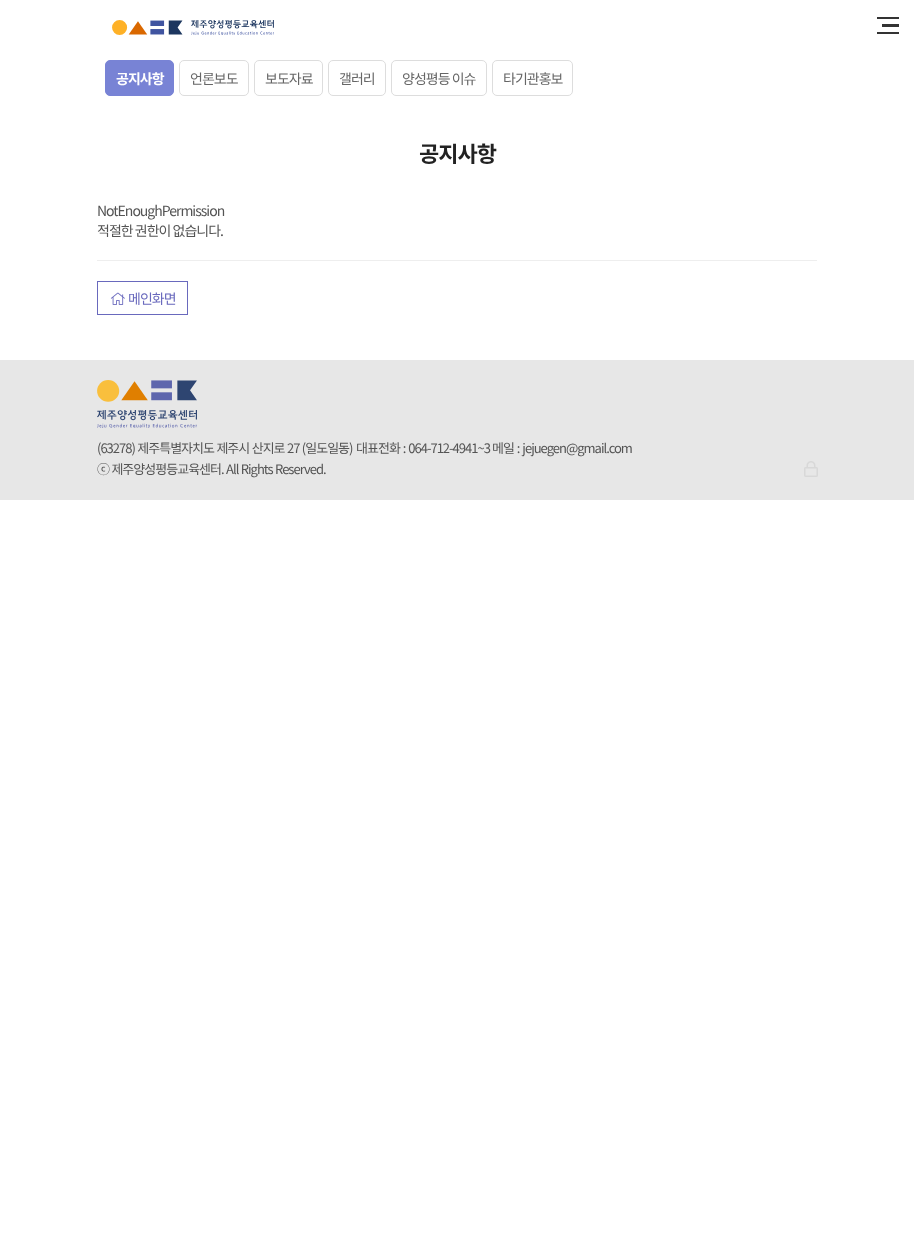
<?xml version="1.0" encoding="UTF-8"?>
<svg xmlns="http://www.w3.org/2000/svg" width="914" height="1237">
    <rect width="100%" height="100%" fill="#FFFFFF"/>
    <image x="112" y="20" width="162" height="15" href="img_01.png"/>
    <rect x="877" y="17" width="22" height="2" fill="#333333"/>
    <rect x="882" y="24" width="17" height="3" fill="#333333"/>
    <rect x="877" y="32" width="22" height="2" fill="#333333"/>
    <rect x="105.5" y="60.5" width="68" height="35" rx="4.5" fill="#7883D5" stroke="#7883D5"/>
    <text x="116" y="84" font-family="Noto Sans KR" font-size="14" font-weight="700" letter-spacing="-1" fill="#FFFFFF">공지사항</text>
    <rect x="179.5" y="60.5" width="69" height="35" rx="4.5" fill="none" stroke="#DDDDDD"/>
    <text x="190" y="84" font-family="Noto Sans KR" font-size="14" letter-spacing="-1" fill="#666666">언론보도</text>
    <rect x="254.5" y="60.5" width="68" height="35" rx="4.5" fill="none" stroke="#DDDDDD"/>
    <text x="265" y="84" font-family="Noto Sans KR" font-size="14" letter-spacing="-1" fill="#666666">보도자료</text>
    <rect x="328.5" y="60.5" width="57" height="35" rx="4.5" fill="none" stroke="#DDDDDD"/>
    <text x="339" y="84" font-family="Noto Sans KR" font-size="14" letter-spacing="-1" fill="#666666">갤러리</text>
    <rect x="391.5" y="60.5" width="95" height="35" rx="4.5" fill="none" stroke="#DDDDDD"/>
    <text x="402" y="84" font-family="Noto Sans KR" font-size="14" letter-spacing="-1" fill="#666666">양성평등 이슈</text>
    <rect x="492.5" y="60.5" width="80" height="35" rx="4.5" fill="none" stroke="#DDDDDD"/>
    <text x="503" y="84" font-family="Noto Sans KR" font-size="14" letter-spacing="-1" fill="#666666">타기관홍보</text>
    <text x="419" y="162" font-family="Noto Sans KR" font-size="22" font-weight="700" letter-spacing="-1" fill="#222222">공지사항</text>
    <text font-family="Noto Sans KR" font-size="14" letter-spacing="-1" fill="#545454">
        <tspan x="97" y="216">NotEnoughPermission</tspan>
        <tspan x="97" y="236">적절한 권한이 없습니다.</tspan>
    </text>
    <rect x="97" y="260" width="720" height="1" fill="#EEEEEE"/>
    <rect x="97.5" y="281.5" width="90" height="33" fill="none" stroke="#6969BD"/>
    <image x="110" y="292" width="15" height="13" href="img_02.png"/>
    <text x="128" y="304" font-family="Noto Sans KR" font-size="14" letter-spacing="-1" fill="#6969BD">메인화면</text>
    <rect x="0" y="360" width="914" height="140" fill="#E7E7E7"/>
    <image x="97" y="380" width="100" height="48" href="img_03.png"/>
    <text x="97" y="453" word-spacing="0.5" font-family="Noto Sans KR" font-size="13" letter-spacing="-1" fill="#545454">(63278) 제주특별자치도 제주시 산지로 27 (일도일동)</text>
    <text x="356" y="453" word-spacing="1" font-family="Noto Sans KR" font-size="13" letter-spacing="-1" fill="#545454">대표전화 : 064-712-4941~3</text>
    <text x="492" y="453" word-spacing="1" font-family="Noto Sans KR" font-size="13" letter-spacing="-1" fill="#545454">메일 : jejuegen@gmail.com</text>
    <text x="97" y="474" word-spacing="0.5" font-family="Noto Sans KR" font-size="13" letter-spacing="-1" fill="#545454">ⓒ 제주양성평등교육센터. All Rights Reserved.</text>
    <image x="804" y="461" width="14" height="16" href="img_04.png"/>
</svg>
